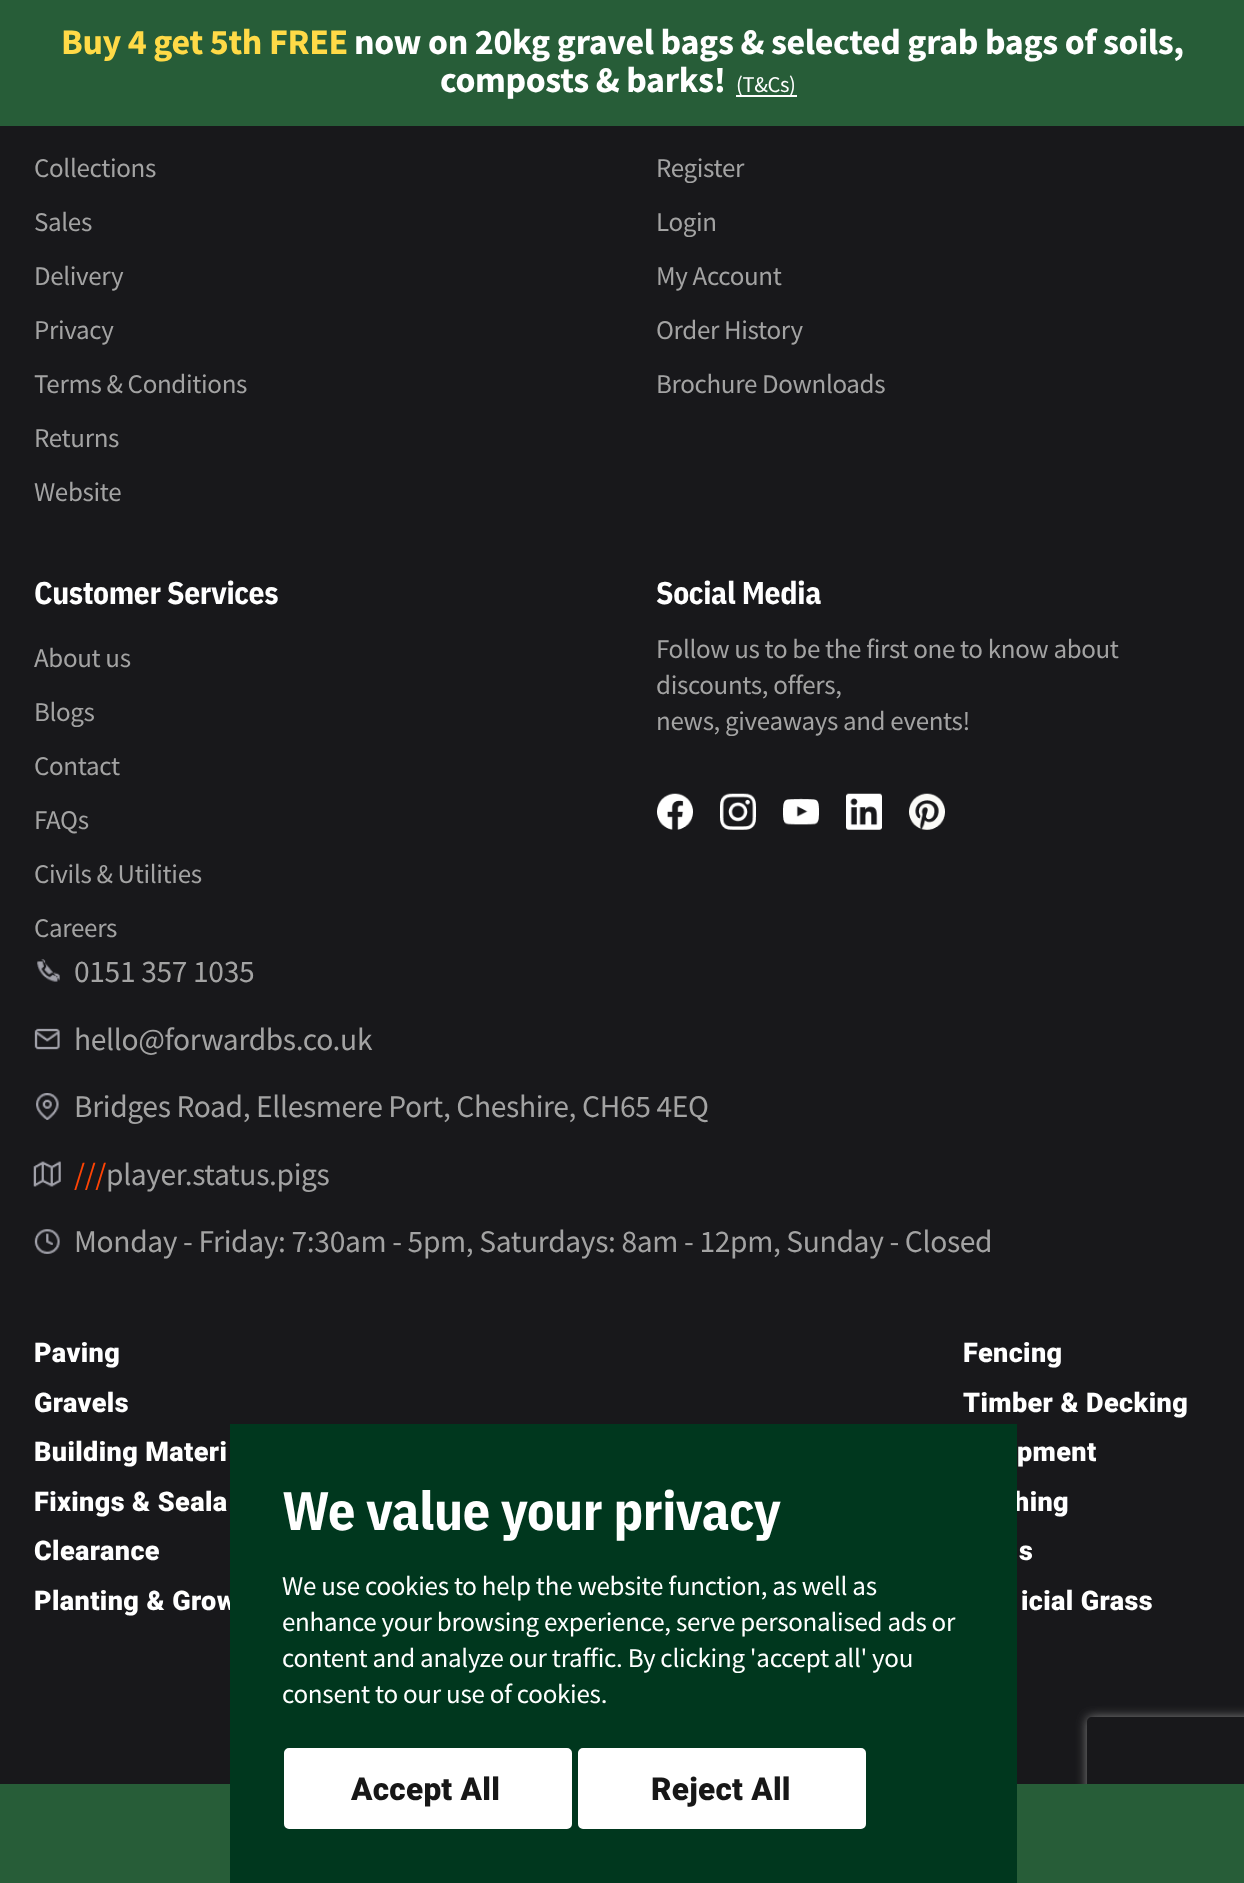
<?xml version="1.0" encoding="UTF-8"?>
<svg xmlns="http://www.w3.org/2000/svg" width="1244" height="1883">
    <defs>
        <clipPath id="clip1"><path d="M 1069 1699 H 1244 V 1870 H 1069 Z M 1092 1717 H 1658 C 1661 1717 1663 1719 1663 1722 V 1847 C 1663 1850 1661 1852 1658 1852 H 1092 C 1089 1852 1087 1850 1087 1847 V 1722 C 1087 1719 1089 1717 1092 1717 Z" clip-rule="evenodd"/></clipPath>
        <filter id="blur1" x="-50%" y="-200%" width="200%" height="500%"><feGaussianBlur stdDeviation="5.5"/></filter>
    </defs>
    <rect width="100%" height="100%" fill="#18181B"/>
    <rect x="0" y="0" width="1244" height="126" fill="#275D38"/>
    <text x="61" y="54" font-family="Source Sans Pro" font-size="36" font-weight="700" letter-spacing="-0.35" fill="#FFDA47">Buy 4 get 5th FREE</text>
    <text x="354" y="54" font-family="Source Sans Pro" font-size="36" font-weight="700" letter-spacing="-0.35" fill="#FFFFFF">now on 20kg gravel bags &amp; selected grab bags of soils,</text>
    <text x="440" y="92" font-family="Source Sans Pro" font-size="36" font-weight="700" letter-spacing="-0.35" fill="#FFFFFF">composts &amp; barks!</text>
    <rect x="736" y="95" width="61" height="2" fill="#FFFFFF"/>
    <text x="736" y="92" font-family="Source Sans Pro" font-size="22.5" letter-spacing="-0.35" fill="#FFFFFF">(T&amp;Cs)</text>
    <text x="34" y="177" font-family="Source Sans Pro" font-size="27" letter-spacing="-0.35" fill="#A3A3A3">Collections</text>
    <text x="34" y="231" font-family="Source Sans Pro" font-size="27" letter-spacing="-0.35" fill="#A3A3A3">Sales</text>
    <text x="34" y="285" font-family="Source Sans Pro" font-size="27" letter-spacing="-0.35" fill="#A3A3A3">Delivery</text>
    <text x="34" y="339" font-family="Source Sans Pro" font-size="27" letter-spacing="-0.35" fill="#A3A3A3">Privacy</text>
    <text x="34" y="393" font-family="Source Sans Pro" font-size="27" letter-spacing="-0.35" fill="#A3A3A3">Terms &amp; Conditions</text>
    <text x="34" y="447" font-family="Source Sans Pro" font-size="27" letter-spacing="-0.35" fill="#A3A3A3">Returns</text>
    <text x="34" y="501" font-family="Source Sans Pro" font-size="27" letter-spacing="-0.35" fill="#A3A3A3">Website</text>
    <text x="656" y="177" font-family="Source Sans Pro" font-size="27" letter-spacing="-0.35" fill="#A3A3A3">Register</text>
    <text x="656" y="231" font-family="Source Sans Pro" font-size="27" letter-spacing="-0.35" fill="#A3A3A3">Login</text>
    <text x="656" y="285" font-family="Source Sans Pro" font-size="27" letter-spacing="-0.35" fill="#A3A3A3">My Account</text>
    <text x="656" y="339" font-family="Source Sans Pro" font-size="27" letter-spacing="-0.35" fill="#A3A3A3">Order History</text>
    <text x="656" y="393" font-family="Source Sans Pro" font-size="27" letter-spacing="-0.35" fill="#A3A3A3">Brochure Downloads</text>
    <text x="34" y="604" font-family="IBM Plex Sans Condensed" font-size="31.5" font-weight="700" letter-spacing="-0.35" fill="#FFFFFF">Customer Services</text>
    <text x="34" y="667" font-family="Source Sans Pro" font-size="27" letter-spacing="-0.35" fill="#A3A3A3">About us</text>
    <text x="34" y="721" font-family="Source Sans Pro" font-size="27" letter-spacing="-0.35" fill="#A3A3A3">Blogs</text>
    <text x="34" y="775" font-family="Source Sans Pro" font-size="27" letter-spacing="-0.35" fill="#A3A3A3">Contact</text>
    <text x="34" y="829" font-family="Source Sans Pro" font-size="27" letter-spacing="-0.35" fill="#A3A3A3">FAQs</text>
    <text x="34" y="883" font-family="Source Sans Pro" font-size="27" letter-spacing="-0.35" fill="#A3A3A3">Civils &amp; Utilities</text>
    <text x="34" y="937" font-family="Source Sans Pro" font-size="27" letter-spacing="-0.35" fill="#A3A3A3">Careers</text>
    <text x="656" y="604" font-family="IBM Plex Sans Condensed" font-size="31.5" font-weight="700" letter-spacing="-0.35" fill="#FFFFFF">Social Media</text>
    <text font-family="Source Sans Pro" font-size="27" letter-spacing="-0.35" fill="#A3A3A3">
        <tspan x="656" y="658">Follow us to be the first one to know about</tspan>
        <tspan x="656" y="694">discounts, offers,</tspan>
        <tspan x="656" y="730">news, giveaways and events!</tspan>
    </text>
    <image x="657" y="793" width="36" height="37" href="img_01.png"/>
    <image x="720" y="793" width="36" height="37" href="img_02.png"/>
    <image x="783" y="798" width="36" height="27" href="img_03.png"/>
    <image x="846" y="793" width="36" height="37" href="img_04.png"/>
    <image x="909" y="793" width="36" height="37" href="img_05.png"/>
    <image x="37" y="959" width="23" height="23" href="img_06.png"/>
    <text x="74" y="982" font-family="Source Sans Pro" font-size="31.5" letter-spacing="-0.35" fill="#A3A3A3">0151 357 1035</text>
    <image x="34" y="1028" width="26" height="22" href="img_07.png"/>
    <text x="74" y="1050" font-family="Source Sans Pro" font-size="31.5" letter-spacing="-0.35" fill="#A3A3A3">hello@forwardbs.co.uk</text>
    <image x="36" y="1093" width="23" height="27" href="img_08.png"/>
    <text x="74" y="1117" font-family="Source Sans Pro" font-size="31.5" letter-spacing="-0.35" fill="#A3A3A3">Bridges Road, Ellesmere Port, Cheshire, CH65 4EQ</text>
    <image x="33" y="1161" width="28" height="26" href="img_09.png"/>
    <text x="74" y="1185" font-family="Source Sans Pro" font-size="31.5" letter-spacing="-0.35" fill="#FF4405">///</text>
    <text x="106" y="1185" font-family="Source Sans Pro" font-size="31.5" letter-spacing="-0.35" fill="#A3A3A3">player.status.pigs</text>
    <image x="34" y="1229" width="26" height="25" href="img_10.png"/>
    <text x="74" y="1252" font-family="Source Sans Pro" font-size="31.5" letter-spacing="-0.35" fill="#A3A3A3">Monday - Friday: 7:30am - 5pm, Saturdays: 8am - 12pm, Sunday - Closed</text>
    <text x="34" y="1362" font-family="Roboto" font-size="27" font-weight="900" letter-spacing="0.4" fill="#FFFFFF">Paving</text>
    <text x="963" y="1362" font-family="Roboto" font-size="27" font-weight="900" letter-spacing="0.4" fill="#FFFFFF">Fencing</text>
    <text x="34" y="1412" font-family="Roboto" font-size="27" font-weight="900" letter-spacing="0.4" fill="#FFFFFF">Gravels</text>
    <text x="963" y="1412" font-family="Roboto" font-size="27" font-weight="900" letter-spacing="0.4" fill="#FFFFFF">Timber &amp; Decking</text>
    <text x="34" y="1461" font-family="Roboto" font-size="27" font-weight="900" letter-spacing="0.4" fill="#FFFFFF">Building Materi</text>
    <text x="1017" y="1461" font-family="Roboto" font-size="27" font-weight="900" letter-spacing="0.4" fill="#FFFFFF">pment</text>
    <text x="34" y="1511" font-family="Roboto" font-size="27" font-weight="900" letter-spacing="0.4" fill="#FFFFFF">Fixings &amp; Seala</text>
    <text x="1014" y="1511" font-family="Roboto" font-size="27" font-weight="900" letter-spacing="0.4" fill="#FFFFFF">hing</text>
    <text x="34" y="1560" font-family="Roboto" font-size="27" font-weight="900" letter-spacing="0.4" fill="#FFFFFF">Clearance</text>
    <text x="1019" y="1560" font-family="Roboto" font-size="27" font-weight="900" letter-spacing="0.4" fill="#FFFFFF">s</text>
    <text x="34" y="1610" font-family="Roboto" font-size="27" font-weight="900" letter-spacing="0.4" fill="#FFFFFF">Planting &amp; Grow</text>
    <text x="1021" y="1610" font-family="Roboto" font-size="27" font-weight="900" letter-spacing="0.4" fill="#FFFFFF">icial Grass</text>
    <g clip-path="url(#clip1)">
        <rect x="1087" y="1717" width="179" height="135" rx="5" fill="#808080" filter="url(#blur1)"/>
    </g>
    <rect x="0" y="1784" width="1244" height="99" fill="#275D38"/>
    <rect x="230" y="1424" width="787" height="459" fill="#00371E"/>
    <text x="282" y="1530" font-family="IBM Plex Sans Condensed" font-size="54" font-weight="700" letter-spacing="-0.35" fill="#FFFFFF">We value your privacy</text>
    <text font-family="Source Sans Pro" font-size="27" letter-spacing="-0.27" fill="#FFFFFF">
        <tspan x="282" y="1595">We use cookies to help the website function, as well as</tspan>
        <tspan x="282" y="1631">enhance your browsing experience, serve personalised ads or</tspan>
        <tspan x="282" y="1667">content and analyze our traffic. By clicking 'accept all' you</tspan>
        <tspan x="282" y="1703">consent to our use of cookies.</tspan>
    </text>
    <rect x="286.5" y="1750.5" width="283" height="76" rx="2.5" fill="#FFFFFF" stroke="#FFFFFF" stroke-width="5"/>
    <text x="351" y="1800" font-family="Roboto" font-size="31.5" font-weight="900" letter-spacing="0.25" fill="#171717">Accept All</text>
    <rect x="580.5" y="1750.5" width="283" height="76" rx="2.5" fill="#FFFFFF" stroke="#FFFFFF" stroke-width="5"/>
    <text x="651" y="1800" font-family="Roboto" font-size="31.5" font-weight="900" letter-spacing="0.25" fill="#171717">Reject All</text>
</svg>
